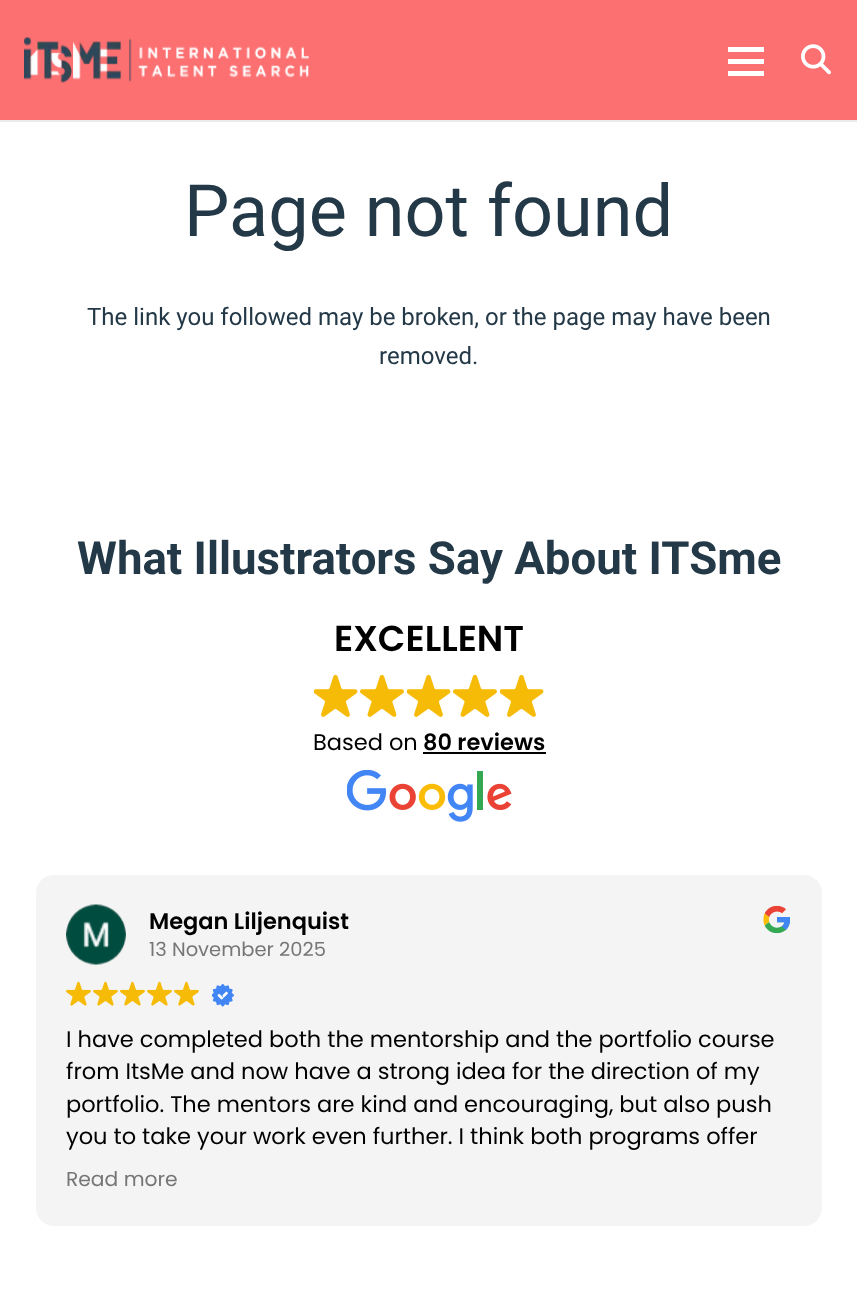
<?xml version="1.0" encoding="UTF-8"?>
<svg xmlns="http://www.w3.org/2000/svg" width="857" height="1305">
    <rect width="100%" height="100%" fill="#FFFFFF"/>
    <rect x="0" y="120" width="857" height="2" fill="#EBEBEB"/>
    <rect x="0" y="0" width="857" height="120" fill="#FD7072"/>
    <image x="24" y="37" width="285" height="46" href="img_01.png"/>
    <rect x="728" y="59" width="36" height="5" fill="#FFFFFF"/>
    <rect x="728" y="47" width="36" height="5" fill="#FFFFFF"/>
    <rect x="728" y="71" width="36" height="5" fill="#FFFFFF"/>
    <image x="801" y="44" width="30" height="31" href="img_02.png"/>
    <text x="184" y="236" font-family="Roboto" font-size="72" fill="#233947">Page not found</text>
    <text x="87" y="325" font-family="Roboto" font-size="24" fill="#233947">The link you followed may be broken, or the page may have been</text>
    <text x="379" y="364" font-family="Roboto" font-size="24" fill="#233947">removed.</text>
    <text x="77" y="574" font-family="Roboto" font-size="45.6" font-weight="700" fill="#233947">What Illustrators Say About ITSme</text>
    <text x="334" y="651" font-family="Poppins" font-size="36" font-weight="600" fill="#000000">EXCELLENT</text>
    <image x="314" y="674" width="44" height="43" href="img_03.png"/>
    <image x="360" y="674" width="44" height="43" href="img_04.png"/>
    <image x="407" y="674" width="44" height="43" href="img_03.png"/>
    <image x="453" y="674" width="44" height="43" href="img_04.png"/>
    <image x="500" y="674" width="44" height="43" href="img_03.png"/>
    <text x="313" y="750" font-family="Poppins" font-size="22.5" fill="#000000">Based on</text>
    <text x="423" y="750" font-family="Poppins" font-size="22.5" font-weight="600" fill="#000000">80 reviews</text>
    <rect x="423" y="752" width="123" height="2" fill="#000000"/>
    <image x="347" y="770" width="165" height="52" href="img_05.png"/>
    <rect x="36" y="875" width="786" height="351" rx="18" fill="#F4F4F4"/>
    <image x="66" y="904" width="60" height="61" href="img_06.png"/>
    <text x="149" y="929" font-family="Poppins" font-size="22.5" font-weight="600" fill="#000000">Megan Liljenquist</text>
    <text x="149" y="956" font-family="Poppins" font-size="19.5" fill="#767676">13 November 2025</text>
    <image x="763" y="905" width="27" height="29" href="img_07.png"/>
    <image x="66" y="981" width="25" height="25" href="img_08.png"/>
    <image x="93" y="981" width="25" height="25" href="img_08.png"/>
    <image x="120" y="981" width="25" height="25" href="img_08.png"/>
    <image x="147" y="981" width="25" height="25" href="img_08.png"/>
    <image x="174" y="981" width="25" height="25" href="img_08.png"/>
    <image x="212" y="984" width="22" height="23" href="img_09.png"/>
    <text font-family="Poppins" font-size="22.5" fill="#000000">
        <tspan x="66" y="1047">I have completed both the mentorship and the portfolio course</tspan>
        <tspan x="66" y="1079">from ItsMe and now have a strong idea for the direction of my</tspan>
        <tspan x="66" y="1112">portfolio. The mentors are kind and encouraging, but also push</tspan>
        <tspan x="66" y="1144">you to take your work even further. I think both programs offer</tspan>
    </text>
    <text x="66" y="1186" font-family="Poppins" font-size="20.25" fill="#767676">Read more</text>
</svg>
